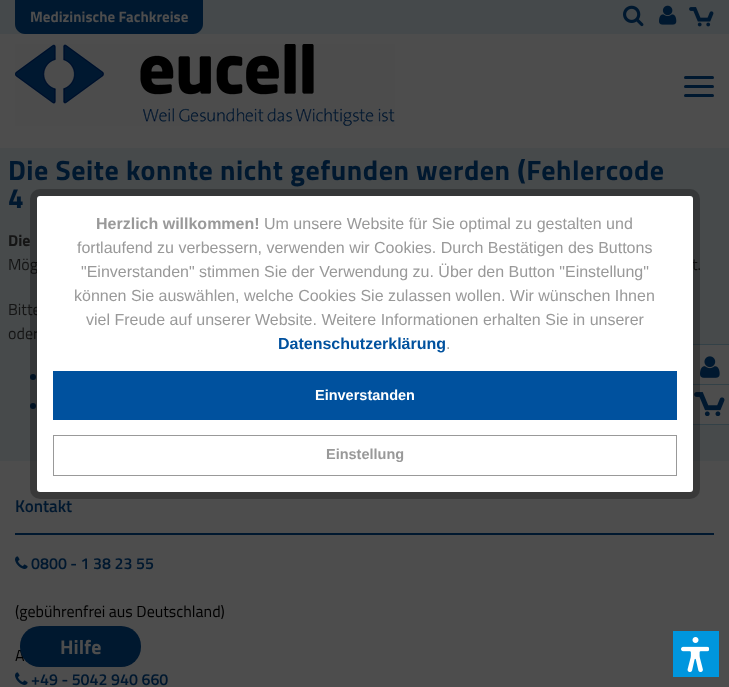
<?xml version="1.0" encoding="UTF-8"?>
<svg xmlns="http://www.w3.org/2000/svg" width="729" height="687">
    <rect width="100%" height="100%" fill="#4D4D4D"/>
    <rect x="0" y="0" width="729" height="34" fill="#45494B"/>
    <path d="M 15 0 H 203 V 24 C 203 29.5 198.5 34 193 34 H 25 C 19.5 34 15 29.5 15 24 Z" fill="#00182F"/>
    <text x="30" y="22" font-family="Titillium Web" font-size="15" font-weight="700" fill="#4D4D4D">Medizinische Fachkreise</text>
    <image x="623" y="5" width="21" height="22" href="img_01.png"/>
    <image x="659" y="5" width="18" height="20" href="img_02.png"/>
    <image x="689" y="7" width="25" height="20" href="img_03.png"/>
    <image x="15" y="44" width="380" height="82" href="img_04.png"/>
    <rect x="684" y="76" width="30" height="3" rx="1.5" fill="#00182F"/>
    <rect x="684" y="85" width="30" height="3" rx="1.5" fill="#00182F"/>
    <rect x="684" y="94" width="30" height="3" rx="1.5" fill="#00182F"/>
    <rect x="0" y="148" width="729" height="313" fill="#474A4B"/>
    <text font-family="Titillium Web" font-size="28" font-weight="700" letter-spacing="0.5" fill="#00182F">
        <tspan x="8" y="180">Die Seite konnte nicht gefunden werden (Fehlercode</tspan>
        <tspan x="8" y="208">4</tspan>
    </text>
    <text x="8" y="246" font-family="Titillium Web" font-size="16" font-weight="700" fill="#151515">Die</text>
    <text x="8" y="270" font-family="Titillium Web" font-size="16" fill="#151515">Mög</text>
    <text x="692" y="270" font-family="Titillium Web" font-size="16" fill="#151515">t.</text>
    <text font-family="Titillium Web" font-size="16" fill="#151515">
        <tspan x="8" y="315">Bitte</tspan>
        <tspan x="8" y="339">oder</tspan>
    </text>
    <circle cx="33" cy="377" r="3" fill="#00182F"/>
    <circle cx="33" cy="406" r="3" fill="#00182F"/>
    <path d="M 694 344 H 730 V 425 H 694 C 691 425 689 423 689 420 V 349 C 689 346 691 344 694 344 Z M 694 345 H 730 V 425 H 694 C 692 425 690 423 690 420 V 349 C 690 347 692 345 694 345 Z" fill="#334147" fill-rule="evenodd"/>
    <path d="M 695 345 H 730 V 385 H 690 V 350 C 690 347 692 345 695 345 Z" fill="#4D4D4D"/>
    <rect x="690" y="384" width="39" height="1" fill="#334147"/>
    <image x="700" y="356" width="20" height="22" href="img_05.png"/>
    <rect x="693" y="385" width="36" height="39" fill="#4D4D4D"/>
    <image x="694" y="392" width="31" height="24" href="img_06.png"/>
    <rect x="693" y="424" width="36" height="1" fill="#334147"/>
    <rect x="15" y="533" width="699" height="2" fill="#00182F"/>
    <text x="15" y="512" font-family="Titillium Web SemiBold" font-size="17" font-weight="600" fill="#00182F">Kontakt</text>
    <image x="15" y="556" width="13" height="13" href="img_07.png"/>
    <text x="31" y="569" font-family="Titillium Web SemiBold" font-size="16" font-weight="600" fill="#00182F">0800 - 1 38 23 55</text>
    <text x="15" y="617" font-family="Titillium Web" font-size="16" fill="#000000">(gebührenfrei aus Deutschland)</text>
    <text x="15" y="661" font-family="Titillium Web" font-size="16" fill="#000000">A</text>
    <image x="15" y="672" width="13" height="13" href="img_07.png"/>
    <text x="31" y="685" font-family="Titillium Web SemiBold" font-size="16" font-weight="600" fill="#00182F">+49 - 5042 940 660</text>
    <rect x="33.5" y="192.5" width="663" height="303" rx="6.5" fill="none" stroke="#000000" stroke-opacity="0.25" stroke-width="7"/>
    <rect x="37" y="196" width="656" height="296" rx="3" fill="#FFFFFF"/>
    <text x="96" y="229" font-family="Liberation Sans" font-size="16" font-weight="700" fill="#999999">Herzlich willkommen!</text>
    <text x="264" y="229" font-family="Liberation Sans" font-size="16" fill="#999999">Um unsere Website für Sie optimal zu gestalten und</text>
    <text x="77" y="253" font-family="Liberation Sans" font-size="16" fill="#999999">fortlaufend zu verbessern, verwenden wir Cookies. Durch Bestätigen des Buttons</text>
    <text x="81" y="277" font-family="Liberation Sans" font-size="16" fill="#999999">"Einverstanden" stimmen Sie der Verwendung zu. Über den Button "Einstellung"</text>
    <text x="74" y="301" font-family="Liberation Sans" font-size="16" fill="#999999">können Sie auswählen, welche Cookies Sie zulassen wollen. Wir wünschen Ihnen</text>
    <text x="86" y="325" font-family="Liberation Sans" font-size="16" fill="#999999">viel Freude auf unserer Website. Weitere Informationen erhalten Sie in unserer</text>
    <text x="278" y="349" font-family="Liberation Sans" font-size="16" font-weight="700" fill="#00519E">Datenschutzerklärung</text>
    <text x="446" y="349" font-family="Liberation Sans" font-size="16" fill="#999999">.</text>
    <rect x="53" y="371" width="624" height="49" fill="#00519E"/>
    <text x="315" y="400" font-family="Liberation Sans" font-size="14.5" font-weight="700" fill="#FFFFFF">Einverstanden</text>
    <rect x="53.5" y="435.5" width="623" height="40" fill="none" stroke="#999999"/>
    <text x="326" y="459" font-family="Liberation Sans" font-size="14.5" font-weight="700" fill="#999999">Einstellung</text>
    <rect x="20" y="626" width="121" height="41" rx="20" fill="#00182F"/>
    <text x="60" y="654" font-family="Titillium Web" font-size="20" font-weight="700" fill="#4D4D4D">Hilfe</text>
    <rect x="673" y="631" width="46" height="46" fill="#0096DE"/>
    <image x="681" y="637" width="28" height="35" href="img_08.png"/>
</svg>
